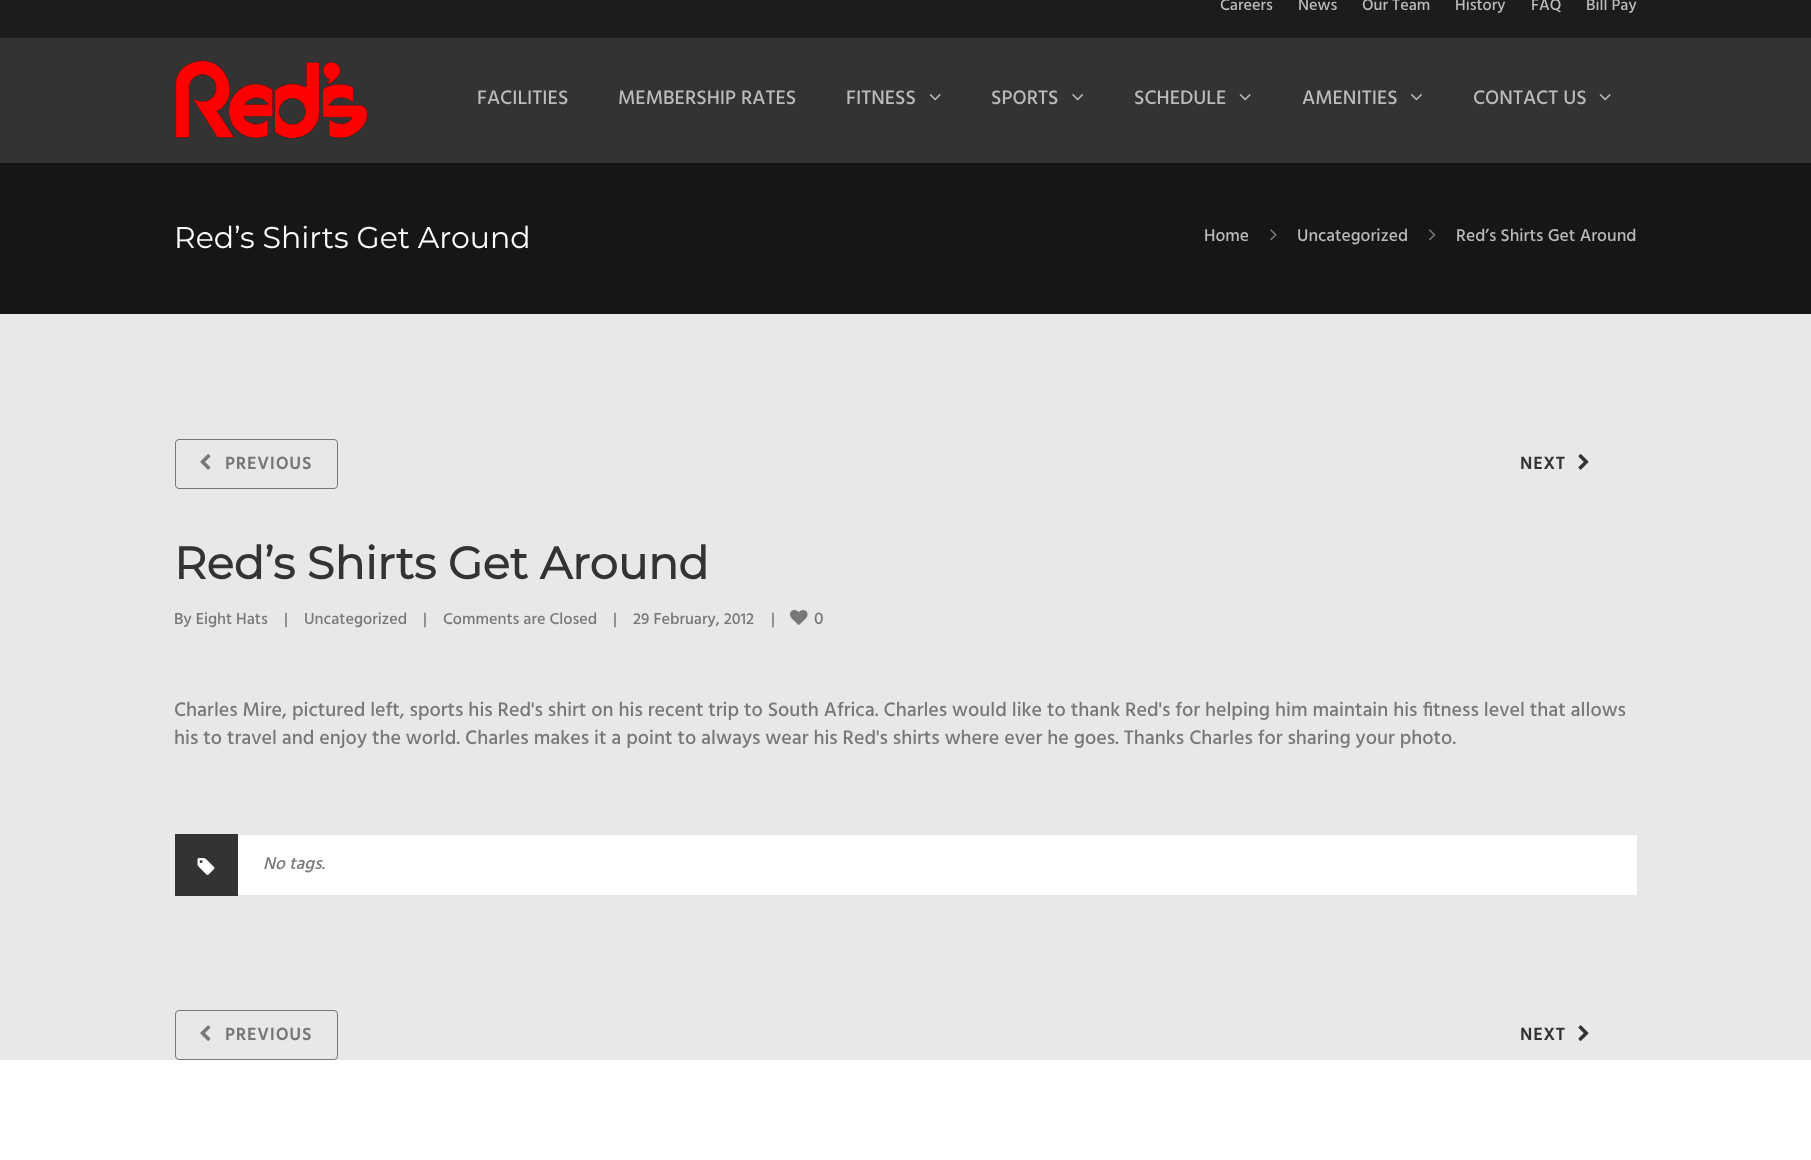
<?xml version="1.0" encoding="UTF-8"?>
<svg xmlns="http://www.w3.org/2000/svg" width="1811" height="1160">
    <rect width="100%" height="100%" fill="#FFFFFF"/>
    <rect x="0" y="0" width="1811" height="38" fill="#1C1C1C"/>
    <text x="1220" y="10" font-family="Hind" font-size="16.25" font-weight="500" fill="#BBBBBB">Careers</text>
    <text x="1298" y="10" font-family="Hind" font-size="16.25" font-weight="500" fill="#BBBBBB">News</text>
    <text x="1362" y="10" font-family="Hind" font-size="16.25" font-weight="500" fill="#BBBBBB">Our Team</text>
    <text x="1455" y="10" font-family="Hind" font-size="16.25" font-weight="500" fill="#BBBBBB">History</text>
    <text x="1531" y="10" font-family="Hind" font-size="16.25" font-weight="500" fill="#BBBBBB">FAQ</text>
    <text x="1586" y="10" font-family="Hind" font-size="16.25" font-weight="500" fill="#BBBBBB">Bill Pay</text>
    <rect x="0" y="38" width="1811" height="125" fill="#333333"/>
    <image x="175" y="60" width="192" height="79" href="img_01.png"/>
    <text x="477" y="104" font-family="Hind" font-size="20" font-weight="500" fill="#BBBBBB">FACILITIES</text>
    <text x="618" y="104" font-family="Hind" font-size="20" font-weight="500" fill="#BBBBBB">MEMBERSHIP RATES</text>
    <text x="846" y="104" font-family="Hind" font-size="20" font-weight="500" fill="#BBBBBB">FITNESS</text>
    <image x="929" y="94" width="12" height="7" href="img_02.png"/>
    <text x="991" y="104" font-family="Hind" font-size="20" font-weight="500" fill="#BBBBBB">SPORTS</text>
    <image x="1072" y="94" width="12" height="7" href="img_03.png"/>
    <text x="1134" y="104" font-family="Hind" font-size="20" font-weight="500" fill="#BBBBBB">SCHEDULE</text>
    <image x="1239" y="94" width="12" height="7" href="img_02.png"/>
    <text x="1302" y="104" font-family="Hind" font-size="20" font-weight="500" fill="#BBBBBB">AMENITIES</text>
    <image x="1410" y="94" width="12" height="7" href="img_04.png"/>
    <text x="1473" y="104" font-family="Hind" font-size="20" font-weight="500" fill="#BBBBBB">CONTACT US</text>
    <image x="1599" y="94" width="12" height="7" href="img_02.png"/>
    <rect x="0" y="163" width="1811" height="151" fill="#161616"/>
    <text x="174" y="248" font-family="Montserrat" font-size="30" font-weight="100" fill="#FFFFFF">Red’s Shirts Get Around</text>
    <text x="1204" y="241" font-family="Hind" font-size="17.5" font-weight="500" fill="#BBBBBB">Home</text>
    <image x="1270" y="229" width="7" height="12" href="img_05.png"/>
    <text x="1297" y="241" font-family="Hind" font-size="17.5" font-weight="500" fill="#BBBBBB">Uncategorized</text>
    <image x="1429" y="229" width="7" height="12" href="img_06.png"/>
    <text x="1456" y="241" font-family="Hind" font-size="17.5" font-weight="500" fill="#BBBBBB">Red’s Shirts Get Around</text>
    <rect x="0" y="314" width="1811" height="746" fill="#E8E8E8"/>
    <rect x="175.5" y="439.5" width="162" height="49" rx="3.5" fill="none" stroke="#777777"/>
    <image x="200" y="454" width="11" height="16" href="img_07.png"/>
    <text x="225" y="469" font-family="Hind" font-size="17.5" font-weight="700" letter-spacing="1.25" fill="#777777">PREVIOUS</text>
    <text x="1520" y="469" font-family="Hind" font-size="17.5" font-weight="700" letter-spacing="1.25" fill="#333333">NEXT</text>
    <image x="1578" y="454" width="11" height="16" href="img_08.png"/>
    <text x="174" y="579" font-family="Montserrat" font-size="45" font-weight="700" fill="#333333">Red’s Shirts Get Around</text>
    <text x="174" y="624" font-family="Hind" font-size="16.25" font-weight="500" fill="#777777">By Eight Hats</text>
    <text x="284" y="624" font-family="Hind" font-size="16.25" font-weight="500" fill="#777777">|</text>
    <text x="304" y="624" font-family="Hind" font-size="16.25" font-weight="500" fill="#777777">Uncategorized</text>
    <text x="423" y="624" font-family="Hind" font-size="16.25" font-weight="500" fill="#777777">|</text>
    <text x="443" y="624" font-family="Hind" font-size="16.25" font-weight="500" fill="#777777">Comments are Closed</text>
    <text x="613" y="624" font-family="Hind" font-size="16.25" font-weight="500" fill="#777777">|</text>
    <text x="633" y="624" font-family="Hind" font-size="16.25" font-weight="500" fill="#777777">29 February, 2012</text>
    <text x="771" y="624" font-family="Hind" font-size="16.25" font-weight="500" fill="#777777">|</text>
    <image x="790" y="610" width="18" height="15" href="img_09.png"/>
    <text x="814" y="624" font-family="Hind" font-size="17.5" font-weight="500" fill="#777777">0</text>
    <text font-family="Hind" font-size="20" font-weight="500" fill="#777777">
        <tspan x="174" y="716">Charles Mire, pictured left, sports his Red's shirt on his recent trip to South Africa. Charles would like to thank Red's for helping him maintain his fitness level that allows</tspan>
        <tspan x="174" y="744">his to travel and enjoy the world. Charles makes it a point to always wear his Red's shirts where ever he goes. Thanks Charles for sharing your photo.</tspan>
    </text>
    <rect x="175" y="834" width="63" height="62" fill="#333333"/>
    <image x="197" y="858" width="18" height="17" href="img_10.png"/>
    <rect x="238" y="835" width="1399" height="60" fill="#FFFFFF"/>
    <text x="263" y="869" font-family="Hind" font-size="17.5" font-weight="500" font-style="italic" fill="#777777">No tags.</text>
    <rect x="175.5" y="1010.5" width="162" height="49" rx="3.5" fill="none" stroke="#777777"/>
    <image x="200" y="1025" width="11" height="16" href="img_11.png"/>
    <text x="225" y="1040" font-family="Hind" font-size="17.5" font-weight="700" letter-spacing="1.25" fill="#777777">PREVIOUS</text>
    <text x="1520" y="1040" font-family="Hind" font-size="17.5" font-weight="700" letter-spacing="1.25" fill="#333333">NEXT</text>
    <image x="1578" y="1025" width="11" height="16" href="img_12.png"/>
</svg>
